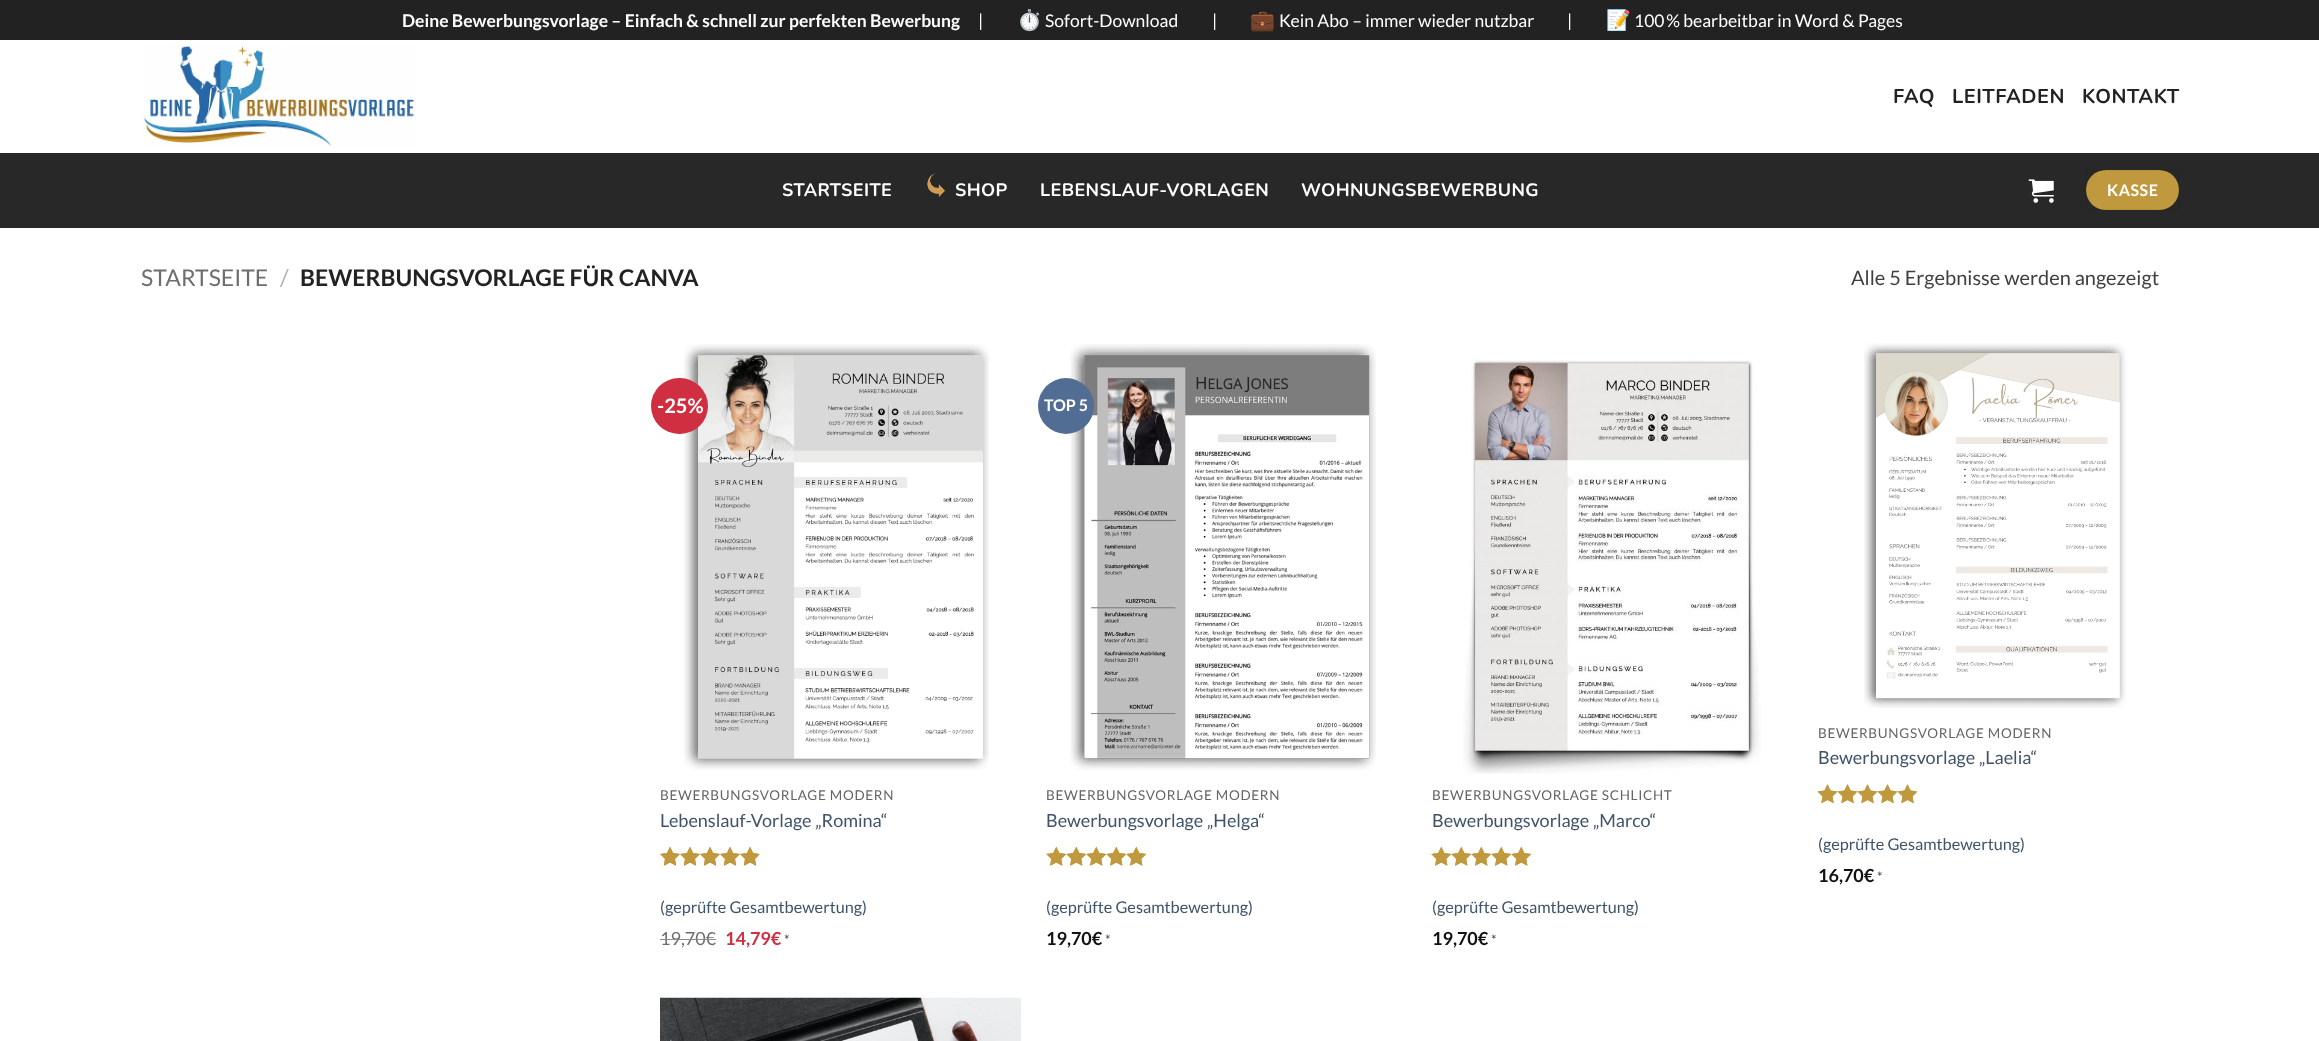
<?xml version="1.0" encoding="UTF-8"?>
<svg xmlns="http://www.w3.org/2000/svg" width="2319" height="1041">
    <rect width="100%" height="100%" fill="#FFFFFF"/>
    <rect x="0" y="0" width="2319" height="40" fill="#222222"/>
    <text x="402" y="27" font-family="Lato" font-size="17.5" font-weight="700" fill="#FFFFFF">Deine Bewerbungsvorlage – Einfach &amp; schnell zur perfekten Bewerbung</text>
    <text x="978" y="27" font-family="Lato" font-size="17.5" fill="#FFFFFF">|</text>
    <text x="1017" y="27" font-family="Noto Color Emoji" font-size="20" fill="#FFFFFF">⏱️</text>
    <text x="1045" y="27" font-family="Lato" font-size="17.5" fill="#FFFFFF">Sofort-Download</text>
    <text x="1212" y="27" font-family="Lato" font-size="17.5" fill="#FFFFFF">|</text>
    <text x="1250" y="27" font-family="Noto Color Emoji" font-size="20" fill="#FFFFFF">💼</text>
    <text x="1279" y="27" font-family="Lato" font-size="17.5" fill="#FFFFFF">Kein Abo – immer wieder nutzbar</text>
    <text x="1567" y="27" font-family="Lato" font-size="17.5" fill="#FFFFFF">|</text>
    <text x="1606" y="27" font-family="Noto Color Emoji" font-size="20" fill="#FFFFFF">📝</text>
    <text x="1634" y="27" font-family="Lato" font-size="17.5" fill="#FFFFFF">100 % bearbeitbar in Word &amp; Pages</text>
    <image x="142" y="45" width="274" height="102" href="img_01.png"/>
    <text x="1893" y="103" font-family="Nunito" font-size="20" font-weight="200" letter-spacing="0.5" fill="#222222">FAQ</text>
    <text x="1952" y="103" font-family="Nunito" font-size="20" font-weight="200" letter-spacing="0.5" fill="#222222">LEITFADEN</text>
    <text x="2082" y="103" font-family="Nunito" font-size="20" font-weight="200" letter-spacing="0.5" fill="#222222">KONTAKT</text>
    <rect x="0" y="153" width="2319" height="75" fill="#282828"/>
    <text x="782" y="196" font-family="Nunito" font-size="18" font-weight="200" letter-spacing="0.4" fill="#FFFFFF">STARTSEITE</text>
    <image x="927" y="173" width="18" height="24" href="img_02.png"/>
    <text x="955" y="196" font-family="Nunito" font-size="18" font-weight="200" letter-spacing="0.4" fill="#FFFFFF">SHOP</text>
    <text x="1040" y="196" font-family="Nunito" font-size="18" font-weight="200" letter-spacing="0.4" fill="#FFFFFF">LEBENSLAUF-VORLAGEN</text>
    <text x="1301" y="196" font-family="Nunito" font-size="18" font-weight="200" letter-spacing="0.4" fill="#FFFFFF">WOHNUNGSBEWERBUNG</text>
    <image x="2028" y="179" width="26" height="24" href="img_03.png"/>
    <rect x="2086" y="170" width="93" height="40" rx="20" fill="#C0993E"/>
    <rect x="2086.5" y="170.5" width="92" height="39" fill="none" stroke="#000000" stroke-opacity="0.05"/>
    <text x="2107" y="196" font-family="Lato" font-size="16" font-weight="700" letter-spacing="0.5" fill="#FFFFFF">KASSE</text>
    <text x="141" y="286" font-family="Lato" font-size="23" fill="#6E6E6E">STARTSEITE</text>
    <text x="280" y="286" font-family="Lato" font-size="23" fill="#B2B2B2">/</text>
    <text x="300" y="286" font-family="Lato" font-size="23" font-weight="700" fill="#222222">BEWERBUNGSVORLAGE FÜR CANVA</text>
    <text x="1851" y="285" font-family="Lato" font-size="20" fill="#3F3F3F">Alle 5 Ergebnisse werden angezeigt</text>
    <image x="684" y="344" width="305" height="426" href="img_04.png"/>
    <rect x="651" y="378" width="57" height="56" rx="28" fill="#CF2F41"/>
    <text x="657" y="413" font-family="Lato" font-size="20" font-weight="700" fill="#FFFFFF">-25%</text>
    <text x="660" y="800" font-family="Lato" font-size="13.5" letter-spacing="0.7" fill="#656565">BEWERBUNGSVORLAGE MODERN</text>
    <text x="660" y="827" font-family="Lato" font-size="18" fill="#3F5469">Lebenslauf-Vorlage „Romina“</text>
    <image x="660" y="847" width="100" height="19" href="img_05.png"/>
    <image x="660" y="847" width="98" height="19" href="img_06.png"/>
    <text x="660" y="913" font-family="Lato" font-size="16.25" fill="#3F5469">(geprüfte Gesamtbewertung)</text>
    <text x="660" y="945" font-family="Lato" font-size="18" fill="#6E6E6E">19,70€</text>
    <rect x="660" y="939" width="56" height="1" fill="#8C8C8C"/>
    <text x="725" y="945" font-family="Lato" font-size="18" font-weight="700" fill="#CF2F41">14,79€</text>
    <text x="784" y="945" font-family="Lato" font-size="14" fill="#3F3F3F">*</text>
    <image x="1070" y="344" width="306" height="426" href="img_07.png"/>
    <circle cx="1066" cy="406" r="28" fill="#516D94"/>
    <text x="1044" y="411" font-family="Lato" font-size="16" font-weight="700" fill="#FFFFFF">TOP 5</text>
    <text x="1046" y="800" font-family="Lato" font-size="13.5" letter-spacing="0.7" fill="#656565">BEWERBUNGSVORLAGE MODERN</text>
    <text x="1046" y="827" font-family="Lato" font-size="18" fill="#3F5469">Bewerbungsvorlage „Helga“</text>
    <image x="1046" y="846" width="101" height="20" href="img_08.png"/>
    <image x="1046" y="846" width="101" height="20" href="img_09.png"/>
    <text x="1046" y="913" font-family="Lato" font-size="16.25" fill="#3F5469">(geprüfte Gesamtbewertung)</text>
    <text x="1046" y="945" font-family="Lato" font-size="18" font-weight="700" fill="#111111">19,70€</text>
    <text x="1105" y="945" font-family="Lato" font-size="14" fill="#3F3F3F">*</text>
    <image x="1463" y="359" width="298" height="415" href="img_10.png"/>
    <text x="1432" y="800" font-family="Lato" font-size="13.5" letter-spacing="0.7" fill="#656565">BEWERBUNGSVORLAGE SCHLICHT</text>
    <text x="1432" y="827" font-family="Lato" font-size="18" fill="#3F5469">Bewerbungsvorlage „Marco“</text>
    <image x="1431" y="846" width="101" height="20" href="img_08.png"/>
    <image x="1431" y="846" width="101" height="20" href="img_09.png"/>
    <text x="1432" y="913" font-family="Lato" font-size="16.25" fill="#3F5469">(geprüfte Gesamtbewertung)</text>
    <text x="1432" y="945" font-family="Lato" font-size="18" font-weight="700" fill="#111111">19,70€</text>
    <text x="1491" y="945" font-family="Lato" font-size="14" fill="#3F3F3F">*</text>
    <image x="1864" y="343" width="262" height="365" href="img_11.png"/>
    <text x="1818" y="738" font-family="Lato" font-size="13.5" letter-spacing="0.7" fill="#656565">BEWERBUNGSVORLAGE MODERN</text>
    <text x="1818" y="764" font-family="Lato" font-size="18" fill="#3F5469">Bewerbungsvorlage „Laelia“</text>
    <image x="1818" y="784" width="100" height="20" href="img_12.png"/>
    <image x="1818" y="784" width="98" height="20" href="img_13.png"/>
    <text x="1818" y="850" font-family="Lato" font-size="16.25" fill="#3F5469">(geprüfte Gesamtbewertung)</text>
    <text x="1818" y="882" font-family="Lato" font-size="18" font-weight="700" fill="#111111">16,70€</text>
    <text x="1877" y="882" font-family="Lato" font-size="14" fill="#3F3F3F">*</text>
    <image x="660" y="997" width="361" height="44" href="img_14.png"/>
</svg>
